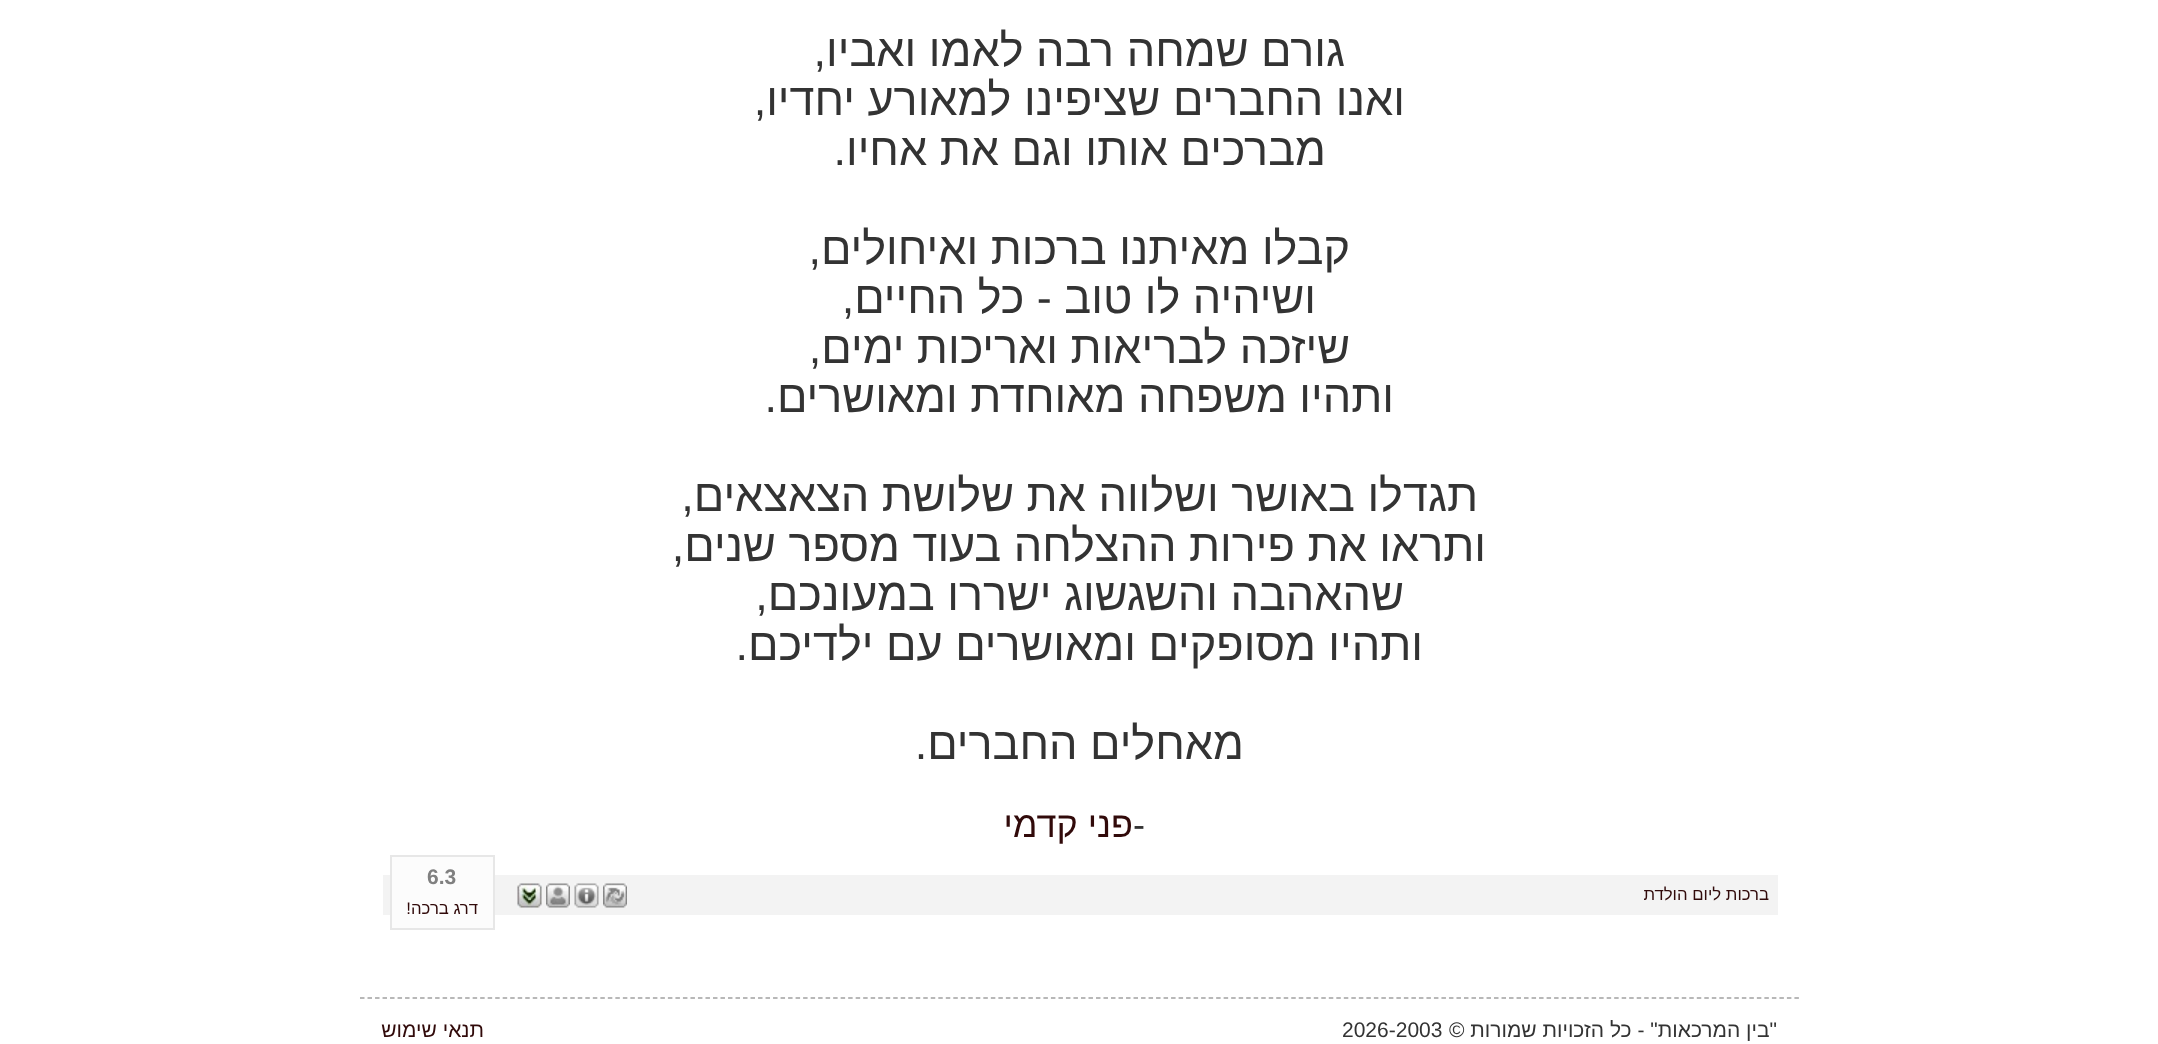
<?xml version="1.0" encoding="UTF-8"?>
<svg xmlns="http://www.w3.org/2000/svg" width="2158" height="1044">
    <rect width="100%" height="100%" fill="#FFFFFF"/>
    <text x="1345" y="66" font-family="Liberation Sans" font-size="45" direction="rtl" fill="#333333">גורם שמחה רבה לאמו ואביו,</text>
    <text x="1405" y="115" font-family="Liberation Sans" font-size="45" direction="rtl" fill="#333333">ואנו החברים שציפינו למאורע יחדיו,</text>
    <text x="1326" y="165" font-family="Liberation Sans" font-size="45" direction="rtl" fill="#333333">מברכים אותו וגם את אחיו.</text>
    <text x="1350" y="264" font-family="Liberation Sans" font-size="45" direction="rtl" fill="#333333">קבלו מאיתנו ברכות ואיחולים,</text>
    <text x="1316" y="313" font-family="Liberation Sans" font-size="45" direction="rtl" fill="#333333">ושיהיה לו טוב - כל החיים,</text>
    <text x="1350" y="363" font-family="Liberation Sans" font-size="45" direction="rtl" fill="#333333">שיזכה לבריאות ואריכות ימים,</text>
    <text x="1394" y="412" font-family="Liberation Sans" font-size="45" direction="rtl" fill="#333333">ותהיו משפחה מאוחדת ומאושרים.</text>
    <text x="1478" y="511" font-family="Liberation Sans" font-size="45" direction="rtl" fill="#333333">תגדלו באושר ושלווה את שלושת הצאצאים,</text>
    <text x="1486" y="561" font-family="Liberation Sans" font-size="45" direction="rtl" fill="#333333">ותראו את פירות ההצלחה בעוד מספר שנים,</text>
    <text x="1404" y="610" font-family="Liberation Sans" font-size="45" direction="rtl" fill="#333333">שהאהבה והשגשוג ישררו במעונכם,</text>
    <text x="1423" y="660" font-family="Liberation Sans" font-size="45" direction="rtl" fill="#333333">ותהיו מסופקים ומאושרים עם ילדיכם.</text>
    <text x="1244" y="759" font-family="Liberation Sans" font-size="45" direction="rtl" fill="#333333">מאחלים החברים.</text>
    <text x="1133" y="837" font-family="Liberation Sans" font-size="36" fill="#333333">-</text>
    <text x="1133" y="837" font-family="Liberation Sans" font-size="36" direction="rtl" fill="#310A0A">פני קדמי</text>
    <rect x="383" y="875" width="1395" height="40" fill="#F3F3F3"/>
    <text x="1769" y="900" font-family="Liberation Sans" font-size="16.75" direction="rtl" fill="#310A0A">ברכות ליום הולדת</text>
    <image x="603" y="883" width="24" height="25" href="img_01.png"/>
    <image x="574" y="883" width="25" height="25" href="img_02.png"/>
    <image x="546" y="883" width="24" height="25" href="img_03.png"/>
    <image x="517" y="883" width="25" height="25" href="img_04.png"/>
    <rect x="391" y="856" width="103" height="73" fill="#FCFCFC" stroke="#E7E7E7" stroke-width="2"/>
    <text x="427" y="884" font-family="Liberation Sans" font-size="21" font-weight="700" fill="#808080">6.3</text>
    <text x="478" y="914" font-family="Liberation Sans" font-size="16.75" direction="rtl" fill="#310A0A">דרג ברכה!</text>
    <path d="M 360 998 H 1800" fill="none" stroke="#A1A1A1" stroke-width="1.5" stroke-dasharray="4.5 3.01"/>
    <text x="1777" y="1037" font-family="Liberation Sans" font-size="21" direction="rtl" fill="#333333">"בין המרכאות" - כל הזכויות שמורות ©</text>
    <text x="1342" y="1037" font-family="Liberation Sans" font-size="21" fill="#333333">2026-2003</text>
    <text x="484" y="1037" font-family="Liberation Sans" font-size="21" direction="rtl" fill="#310A0A">תנאי שימוש</text>
</svg>
